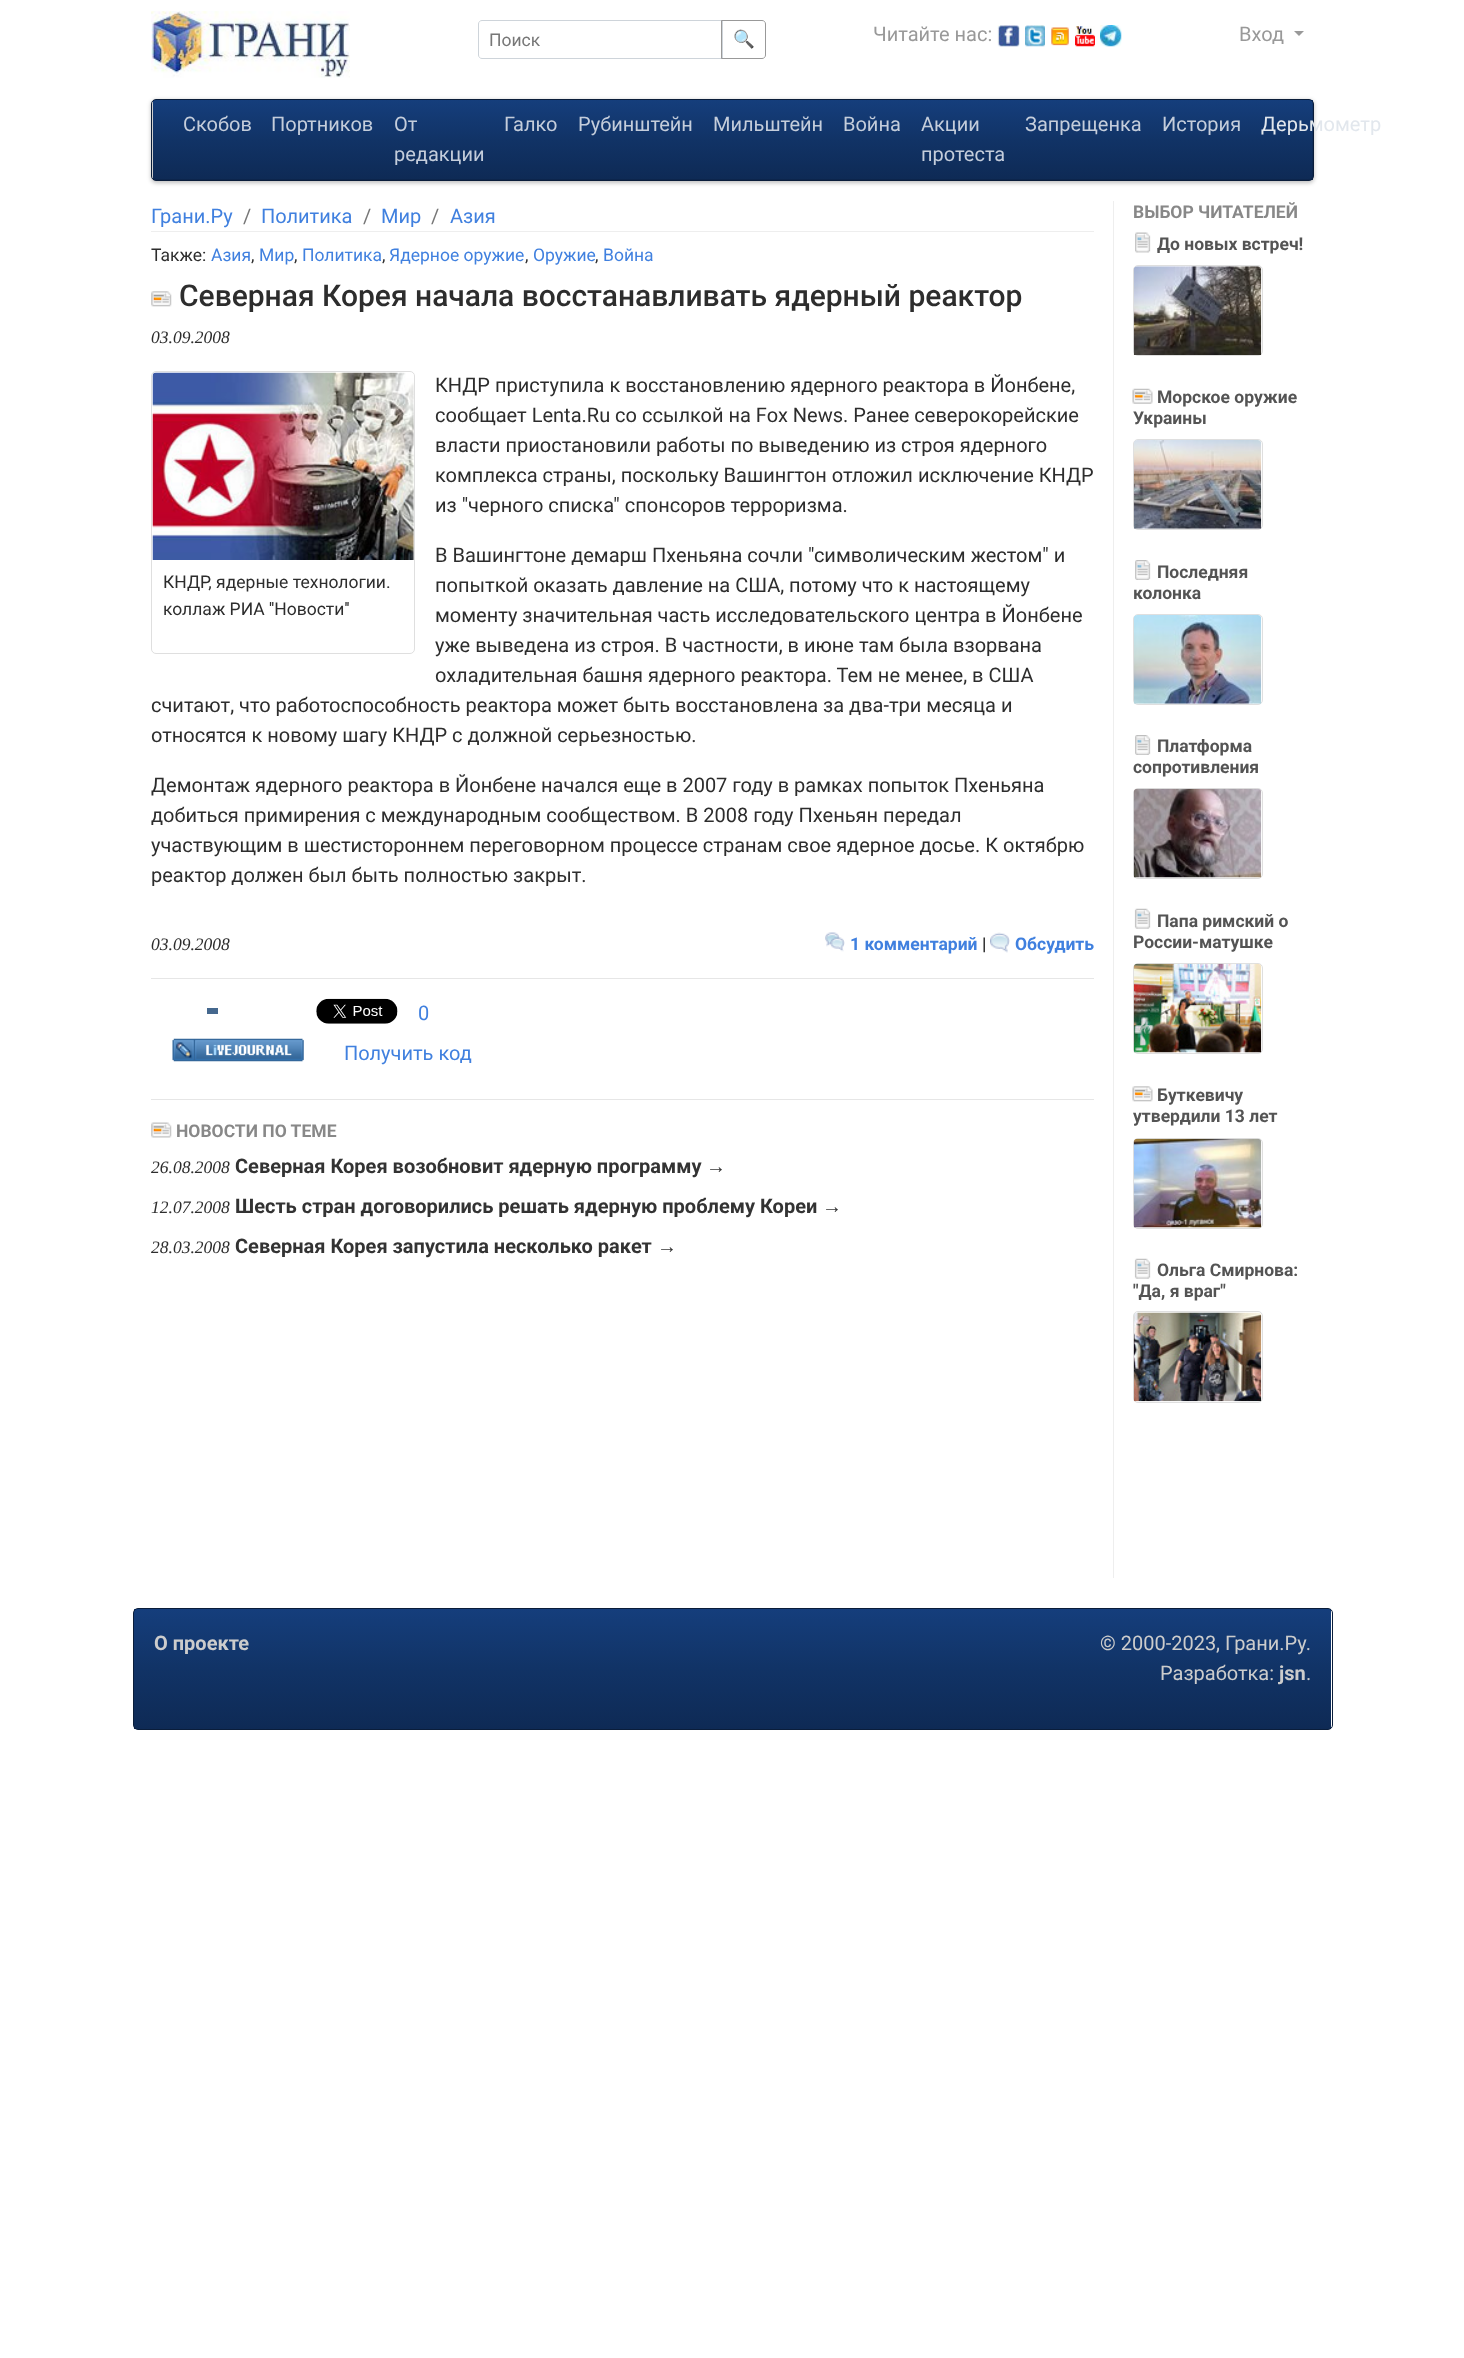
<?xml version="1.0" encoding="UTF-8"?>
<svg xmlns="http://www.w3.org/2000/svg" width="1464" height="2358">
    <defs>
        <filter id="blur1" x="-50%" y="-200%" width="200%" height="500%"><feGaussianBlur stdDeviation="2"/></filter>
        <linearGradient id="g1" gradientUnits="userSpaceOnUse" x1="733" y1="100" x2="733" y2="180"><stop offset="0" stop-color="#153E7C"/><stop offset="0.5" stop-color="#113366"/><stop offset="1" stop-color="#0E2A55"/></linearGradient>
        <linearGradient id="g2" gradientUnits="userSpaceOnUse" x1="733" y1="1609" x2="733" y2="1729"><stop offset="0" stop-color="#153E7C"/><stop offset="0.5" stop-color="#113366"/><stop offset="1" stop-color="#0E2A55"/></linearGradient>
    </defs>
    <rect width="100%" height="100%" fill="#FFFFFF"/>
    <image x="151" y="11" width="199" height="67" href="img_01.png"/>
    <path d="M 482 20.5 H 722.5 V 58.5 H 482 C 480 58.5 478.5 57 478.5 55 V 24 C 478.5 22 480 20.5 482 20.5 Z" fill="none" stroke="#CED4DA"/>
    <text x="489" y="46" font-family="Roboto" font-size="17.5" fill="#777777">Поиск</text>
    <path d="M 721.5 20.5 H 762 C 764 20.5 765.5 22 765.5 24 V 55 C 765.5 57 764 58.5 762 58.5 H 721.5 Z" fill="none" stroke="#999999"/>
    <text x="733" y="45" font-family="Noto Color Emoji" font-size="17.5" fill="#999999">🔍</text>
    <text x="873" y="41" font-family="Roboto" font-size="20" fill="#999999">Читайте нас:</text>
    <image x="997" y="25" width="23" height="22" href="img_02.png"/>
    <image x="1025" y="25" width="20" height="22" href="img_03.png"/>
    <image x="1051" y="27" width="18" height="19" href="img_04.png"/>
    <image x="1075" y="26" width="20" height="21" href="img_05.png"/>
    <image x="1100" y="25" width="22" height="22" href="img_06.png"/>
    <text x="1239" y="41" font-family="Roboto" font-size="20" fill="#999999">Вход</text>
    <path d="M 1294 31 H 1304 L 1299 36 Z" fill="#999999"/>
    <rect x="151" y="100" width="1163" height="83" rx="5" fill="#000000" fill-opacity="0.25" filter="url(#blur1)"/>
    <rect x="153" y="100" width="1160" height="80" fill="url(#g1)"/>
    <path d="M 154 178 C 154 179 156 180 157 180 H 1309 C 1311 180 1313 178 1313 176 V 104 C 1313 103 1313 102 1312 101 V 175 C 1312 177 1311 179 1309 179 H 156 Z" fill="#000000" fill-opacity="0.1"/>
    <rect x="151.5" y="99.5" width="1162" height="81" rx="4.5" fill="none" stroke="#0A1D3A"/>
    <text x="183" y="131" font-family="Roboto" font-size="20" fill="#C4CDDB">Скобов</text>
    <text x="271" y="131" font-family="Roboto" font-size="20" fill="#C4CDDB">Портников</text>
    <text font-family="Roboto" font-size="20" fill="#C4CDDB">
        <tspan x="394" y="131">От</tspan>
        <tspan x="394" y="161">редакции</tspan>
    </text>
    <text x="504" y="131" font-family="Roboto" font-size="20" fill="#C4CDDB">Галко</text>
    <text x="578" y="131" font-family="Roboto" font-size="20" fill="#C4CDDB">Рубинштейн</text>
    <text x="713" y="131" font-family="Roboto" font-size="20" fill="#C4CDDB">Мильштейн</text>
    <text x="843" y="131" font-family="Roboto" font-size="20" fill="#C4CDDB">Война</text>
    <text font-family="Roboto" font-size="20" fill="#C4CDDB">
        <tspan x="921" y="131">Акции</tspan>
        <tspan x="921" y="161">протеста</tspan>
    </text>
    <text x="1025" y="131" font-family="Roboto" font-size="20" fill="#C4CDDB">Запрещенка</text>
    <text x="1162" y="131" font-family="Roboto" font-size="20" fill="#C4CDDB">История</text>
    <text x="1261" y="131" font-family="Roboto" font-size="20" fill="#E2E7ED">Дерьмометр</text>
    <rect x="151" y="231" width="943" height="1" fill="#EEEEEE"/>
    <text x="151" y="223" font-family="Roboto" font-size="20" fill="#4080DF">Грани.Ру</text>
    <text x="243" y="223" font-family="Roboto" font-size="20" fill="#777777">/</text>
    <text x="261" y="223" font-family="Roboto" font-size="20" fill="#4080DF">Политика</text>
    <text x="363" y="223" font-family="Roboto" font-size="20" fill="#777777">/</text>
    <text x="381" y="223" font-family="Roboto" font-size="20" fill="#4080DF">Мир</text>
    <text x="431" y="223" font-family="Roboto" font-size="20" fill="#777777">/</text>
    <text x="450" y="223" font-family="Roboto" font-size="20" fill="#4080DF">Азия</text>
    <text x="151" y="261" font-family="Roboto" font-size="17.5" fill="#2D2D2D">Также:</text>
    <text x="211" y="261" font-family="Roboto" font-size="17.5" fill="#4080DF">Азия</text>
    <text x="251" y="261" font-family="Roboto" font-size="17.5" fill="#2D2D2D">,</text>
    <text x="259" y="261" font-family="Roboto" font-size="17.5" fill="#4080DF">Мир</text>
    <text x="294" y="261" font-family="Roboto" font-size="17.5" fill="#2D2D2D">,</text>
    <text x="302" y="261" font-family="Roboto" font-size="17.5" fill="#4080DF">Политика</text>
    <text x="382" y="261" font-family="Roboto" font-size="17.5" fill="#2D2D2D">,</text>
    <text x="389" y="261" font-family="Roboto" font-size="17.5" fill="#4080DF">Ядерное оружие</text>
    <text x="525" y="261" font-family="Roboto" font-size="17.5" fill="#2D2D2D">,</text>
    <text x="533" y="261" font-family="Roboto" font-size="17.5" fill="#4080DF">Оружие</text>
    <text x="595" y="261" font-family="Roboto" font-size="17.5" fill="#2D2D2D">,</text>
    <text x="603" y="261" font-family="Roboto" font-size="17.5" fill="#4080DF">Война</text>
    <image x="151" y="291" width="21" height="16" href="img_07.png"/>
    <text x="179" y="306" font-family="Roboto" font-size="30" font-weight="500" fill="#2D2D2D">Северная Корея начала восстанавливать ядерный реактор</text>
    <text x="151" y="343" font-family="Liberation Serif" font-size="17.5" font-style="italic" fill="#2D2D2D">03.09.2008</text>
    <text font-family="Roboto" font-size="20" fill="#2D2D2D">
        <tspan x="435" y="392">КНДР приступила к восстановлению ядерного реактора в Йонбене,</tspan>
        <tspan x="435" y="422">сообщает Lenta.Ru со ссылкой на Fox News. Ранее северокорейские</tspan>
        <tspan x="435" y="452">власти приостановили работы по выведению из строя ядерного</tspan>
        <tspan x="435" y="482">комплекса страны, поскольку Вашингтон отложил исключение КНДР</tspan>
        <tspan x="435" y="512">из "черного списка" спонсоров терроризма.</tspan>
    </text>
    <text font-family="Roboto" font-size="20" fill="#2D2D2D">
        <tspan x="435" y="562">В Вашингтоне демарш Пхеньяна сочли "символическим жестом" и</tspan>
        <tspan x="435" y="592">попыткой оказать давление на США, потому что к настоящему</tspan>
        <tspan x="435" y="622">моменту значительная часть исследовательского центра в Йонбене</tspan>
        <tspan x="435" y="652">уже выведена из строя. В частности, в июне там была взорвана</tspan>
        <tspan x="435" y="682">охладительная башня ядерного реактора. Тем не менее, в США</tspan>
    </text>
    <text font-family="Roboto" font-size="20" fill="#2D2D2D">
        <tspan x="151" y="712">считают, что работоспособность реактора может быть восстановлена за два-три месяца и</tspan>
        <tspan x="151" y="742">относятся к новому шагу КНДР с должной серьезностью.</tspan>
    </text>
    <text font-family="Roboto" font-size="20" fill="#2D2D2D">
        <tspan x="151" y="792">Демонтаж ядерного реактора в Йонбене начался еще в 2007 году в рамках попыток Пхеньяна</tspan>
        <tspan x="151" y="822">добиться примирения с международным сообществом. В 2008 году Пхеньян передал</tspan>
        <tspan x="151" y="852">участвующим в шестистороннем переговорном процессе странам свое ядерное досье. К октябрю</tspan>
        <tspan x="151" y="882">реактор должен был быть полностью закрыт.</tspan>
    </text>
    <rect x="151.5" y="371.5" width="263" height="282" rx="4.5" fill="none" stroke="#DFDFDF"/>
    <image x="152" y="372" width="262" height="188" href="img_08.png"/>
    <text font-family="Roboto" font-size="17.5" fill="#2D2D2D">
        <tspan x="163" y="588">КНДР, ядерные технологии.</tspan>
        <tspan x="163" y="615">коллаж РИА ''Новости''</tspan>
    </text>
    <text x="151" y="950" font-family="Liberation Serif" font-size="17.5" font-style="italic" fill="#2D2D2D">03.09.2008</text>
    <image x="825" y="932" width="20" height="20" href="img_09.png"/>
    <text x="850" y="950" font-family="Roboto" font-size="17.5" font-weight="700" fill="#4080DF">1 комментарий</text>
    <text x="982" y="950" font-family="Roboto" font-size="17.5" font-weight="700" fill="#2D2D2D">|</text>
    <image x="990" y="932" width="20" height="21" href="img_10.png"/>
    <text x="1015" y="950" font-family="Roboto" font-size="17.5" font-weight="700" fill="#4080DF">Обсудить</text>
    <rect x="151" y="978" width="943" height="1" fill="#E6E6E6"/>
    <rect x="207" y="1008" width="11" height="6" fill="#45688E"/>
    <image x="316" y="998" width="82" height="26" href="img_11.png"/>
    <text x="418" y="1020" font-family="Roboto" font-size="20" fill="#4080DF">0</text>
    <image x="172" y="1038" width="132" height="24" href="img_12.png"/>
    <text x="344" y="1060" font-family="Roboto" font-size="20" fill="#4080DF">Получить код</text>
    <rect x="151" y="1099" width="943" height="1" fill="#E6E6E6"/>
    <image x="151" y="1122" width="21" height="16" href="img_13.png"/>
    <text x="176" y="1137" font-family="Roboto" font-size="17.5" font-weight="700" fill="#888888">НОВОСТИ ПО ТЕМЕ</text>
    <text x="151" y="1173" font-family="Liberation Serif" font-size="17.5" font-style="italic" fill="#2D2D2D">26.08.2008</text>
    <text x="235" y="1173" font-family="Roboto" font-size="20" font-weight="700" fill="#333333">Северная Корея возобновит ядерную программу</text>
    <text x="706" y="1173" font-family="Liberation Sans" font-size="20" font-weight="700" fill="#333333">→</text>
    <text x="151" y="1213" font-family="Liberation Serif" font-size="17.5" font-style="italic" fill="#2D2D2D">12.07.2008</text>
    <text x="235" y="1213" font-family="Roboto" font-size="20" font-weight="700" fill="#333333">Шесть стран договорились решать ядерную проблему Кореи</text>
    <text x="822" y="1213" font-family="Liberation Sans" font-size="20" font-weight="700" fill="#333333">→</text>
    <text x="151" y="1253" font-family="Liberation Serif" font-size="17.5" font-style="italic" fill="#2D2D2D">28.03.2008</text>
    <text x="235" y="1253" font-family="Roboto" font-size="20" font-weight="700" fill="#333333">Северная Корея запустила несколько ракет</text>
    <text x="657" y="1253" font-family="Liberation Sans" font-size="20" font-weight="700" fill="#333333">→</text>
    <rect x="1113" y="201" width="1" height="1377" fill="#EEEEEE"/>
    <text x="1133" y="218" font-family="Roboto" font-size="17.5" font-weight="700" fill="#888888">ВЫБОР ЧИТАТЕЛЕЙ</text>
    <image x="1135" y="232" width="16" height="21" href="img_14.png"/>
    <text x="1157" y="250" font-family="Roboto" font-size="17.5" font-weight="700" fill="#545454">До новых встреч!</text>
    <rect x="1133.5" y="265.5" width="129" height="90" rx="4.5" fill="none" stroke="#DFDFDF"/>
    <image x="1133" y="266" width="129" height="89" href="img_15.png"/>
    <image x="1132" y="388" width="21" height="16" href="img_16.png"/>
    <text x="1157" y="403" font-family="Roboto" font-size="17.5" font-weight="700" fill="#545454">Морское оружие</text>
    <text x="1133" y="424" font-family="Roboto" font-size="17.5" font-weight="700" fill="#545454">Украины</text>
    <rect x="1133.5" y="439.5" width="129" height="90" rx="4.5" fill="none" stroke="#DFDFDF"/>
    <image x="1133" y="440" width="129" height="89" href="img_17.png"/>
    <image x="1135" y="560" width="16" height="20" href="img_18.png"/>
    <text x="1157" y="578" font-family="Roboto" font-size="17.5" font-weight="700" fill="#545454">Последняя</text>
    <text x="1133" y="599" font-family="Roboto" font-size="17.5" font-weight="700" fill="#545454">колонка</text>
    <rect x="1133.5" y="614.5" width="129" height="90" rx="4.5" fill="none" stroke="#DFDFDF"/>
    <image x="1133" y="615" width="129" height="89" href="img_19.png"/>
    <image x="1135" y="735" width="16" height="20" href="img_18.png"/>
    <text x="1157" y="752" font-family="Roboto" font-size="17.5" font-weight="700" fill="#545454">Платформа</text>
    <text x="1133" y="773" font-family="Roboto" font-size="17.5" font-weight="700" fill="#545454">сопротивления</text>
    <rect x="1133.5" y="788.5" width="129" height="90" rx="4.5" fill="none" stroke="#DFDFDF"/>
    <image x="1133" y="788" width="129" height="90" href="img_20.png"/>
    <image x="1134" y="908" width="17" height="21" href="img_21.png"/>
    <text x="1157" y="927" font-family="Roboto" font-size="17.5" font-weight="700" fill="#545454">Папа римский о</text>
    <text x="1133" y="948" font-family="Roboto" font-size="17.5" font-weight="700" fill="#545454">России-матушке</text>
    <rect x="1133.5" y="963.5" width="129" height="90" rx="4.5" fill="none" stroke="#DFDFDF"/>
    <image x="1133" y="963" width="129" height="90" href="img_22.png"/>
    <image x="1132" y="1086" width="21" height="16" href="img_23.png"/>
    <text x="1157" y="1101" font-family="Roboto" font-size="17.5" font-weight="700" fill="#545454">Буткевичу</text>
    <text x="1133" y="1122" font-family="Roboto" font-size="17.5" font-weight="700" fill="#545454">утвердили 13 лет</text>
    <rect x="1133.5" y="1138.5" width="129" height="90" rx="4.5" fill="none" stroke="#DFDFDF"/>
    <image x="1133" y="1138" width="129" height="90" href="img_24.png"/>
    <image x="1134" y="1258" width="17" height="21" href="img_21.png"/>
    <text x="1157" y="1276" font-family="Roboto" font-size="17.5" font-weight="700" fill="#545454">Ольга Смирнова:</text>
    <text x="1133" y="1297" font-family="Roboto" font-size="17.5" font-weight="700" fill="#545454">"Да, я враг"</text>
    <rect x="1133.5" y="1311.5" width="129" height="91" rx="4.5" fill="none" stroke="#DFDFDF"/>
    <image x="1133" y="1312" width="129" height="90" href="img_25.png"/>
    <rect x="134" y="1609" width="1197" height="120" fill="url(#g2)"/>
    <rect x="133.5" y="1608.5" width="1199" height="121" rx="4.5" fill="none" stroke="#0A1D3A"/>
    <text x="154" y="1650" font-family="Roboto" font-size="20" font-weight="700" fill="#CCCCCC">О проекте</text>
    <text x="1100" y="1650" font-family="Roboto" font-size="20" fill="#CCCCCC">© 2000-2023, Грани.Ру.</text>
    <text x="1160" y="1680" font-family="Roboto" font-size="20" fill="#CCCCCC">Разработка:</text>
    <text x="1279" y="1680" font-family="Roboto" font-size="20" font-weight="700" fill="#CCCCCC">jsn</text>
    <text x="1306" y="1680" font-family="Roboto" font-size="20" fill="#CCCCCC">.</text>
</svg>
